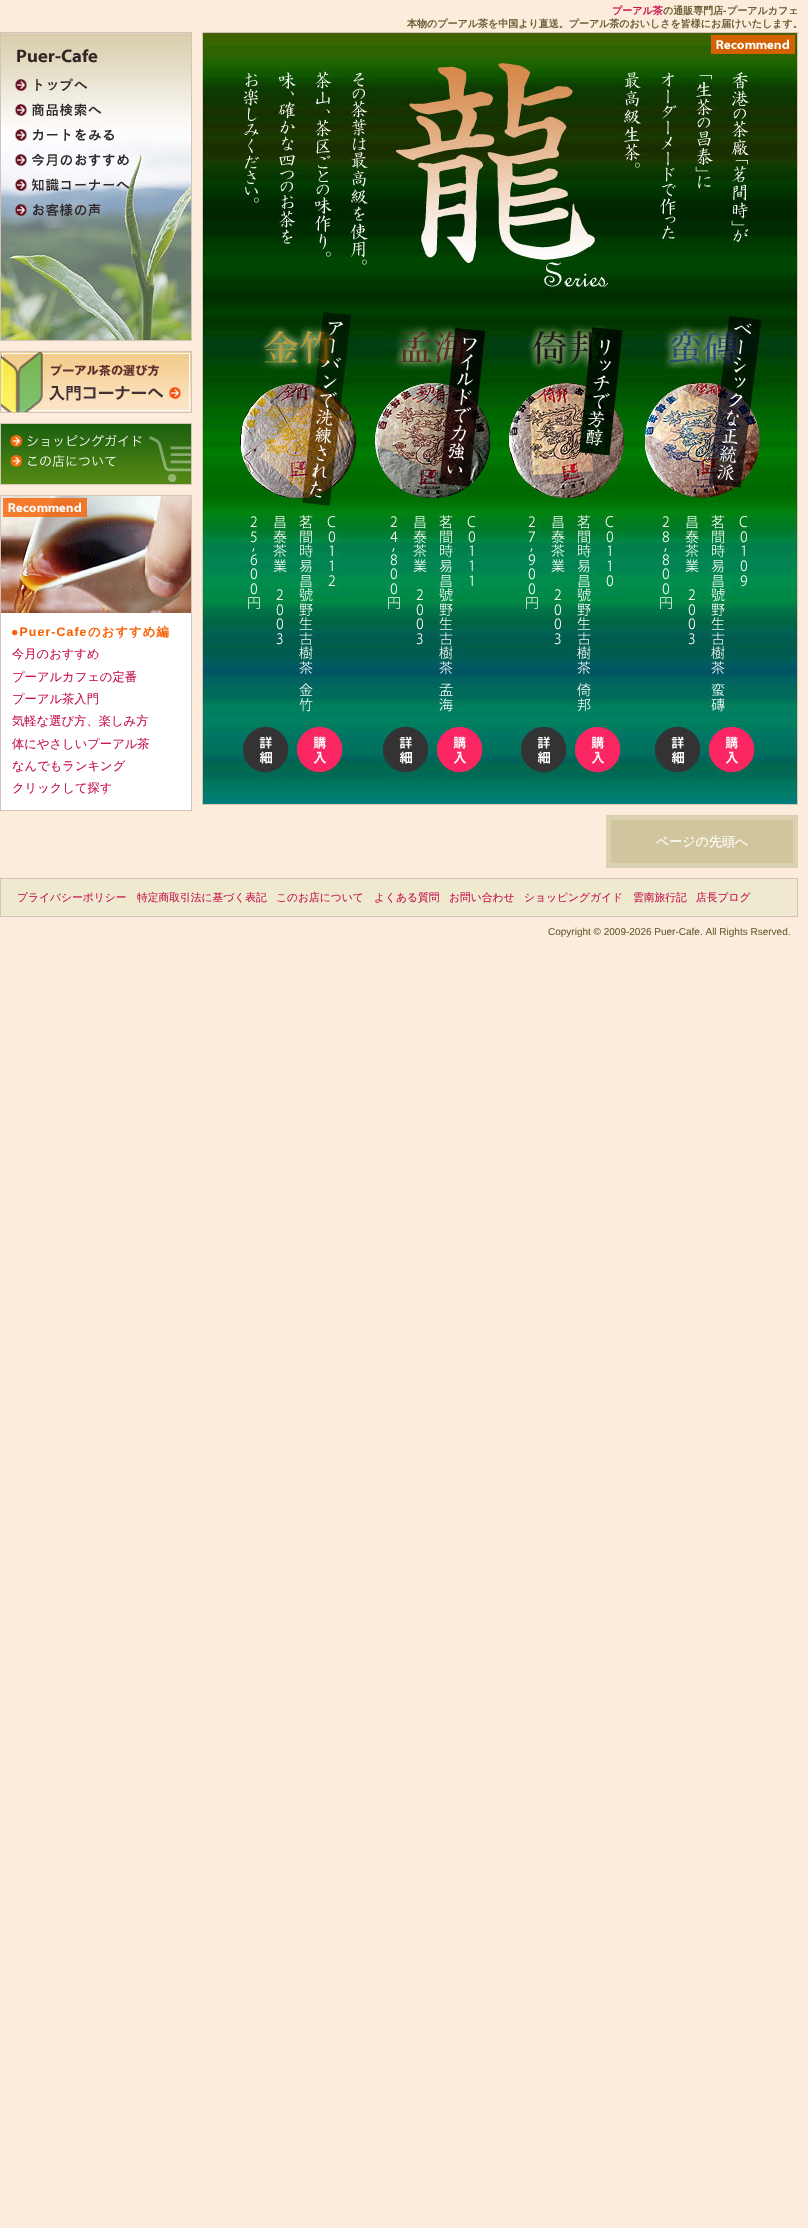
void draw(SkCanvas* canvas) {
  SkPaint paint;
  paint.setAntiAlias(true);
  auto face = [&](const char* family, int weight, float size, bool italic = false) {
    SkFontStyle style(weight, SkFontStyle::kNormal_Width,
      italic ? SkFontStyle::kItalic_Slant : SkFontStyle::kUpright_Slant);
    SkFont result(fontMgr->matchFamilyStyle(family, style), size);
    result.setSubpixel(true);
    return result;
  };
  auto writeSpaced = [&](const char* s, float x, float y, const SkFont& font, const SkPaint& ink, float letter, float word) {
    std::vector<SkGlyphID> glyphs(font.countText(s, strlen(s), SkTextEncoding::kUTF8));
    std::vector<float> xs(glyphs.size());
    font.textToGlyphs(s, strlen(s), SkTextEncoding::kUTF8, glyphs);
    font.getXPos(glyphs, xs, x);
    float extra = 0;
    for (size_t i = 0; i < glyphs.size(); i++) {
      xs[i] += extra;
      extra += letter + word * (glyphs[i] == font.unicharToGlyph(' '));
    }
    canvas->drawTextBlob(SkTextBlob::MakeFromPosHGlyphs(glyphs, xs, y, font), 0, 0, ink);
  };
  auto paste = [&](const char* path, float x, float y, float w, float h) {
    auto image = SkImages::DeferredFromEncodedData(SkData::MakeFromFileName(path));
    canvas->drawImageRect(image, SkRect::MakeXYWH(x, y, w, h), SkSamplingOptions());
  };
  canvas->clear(0xfffdebdb);
  paste("img/1.png", 1, 33, 190, 307);
  paint.setStroke(true);
  paint.setStrokeWidth(1);
  paint.setColor(0xffd5c3b9);
  canvas->drawRect(SkRect::MakeXYWH(0.5f, 32.5f, 191, 308), paint);
  paste("img/2.png", 17, 49, 81, 14);
  paste("img/3.png", 15, 78, 73, 13);
  paste("img/4.png", 15, 103, 87, 14);
  paste("img/5.png", 15, 128, 99, 13);
  paste("img/6.png", 15, 153, 114, 14);
  paste("img/7.png", 15, 178, 115, 13);
  paste("img/8.png", 15, 203, 86, 14);
  paste("img/9.png", 0, 351, 192, 62);
  paste("img/10.png", 1, 424, 190, 60);
  canvas->drawRect(SkRect::MakeXYWH(0.5f, 423.5f, 191, 61), paint);
  paste("img/11.png", 10, 434, 132, 13);
  paste("img/12.png", 10, 455, 106, 12);
  paint.setStroke(false);
  paint.setColor(0xffffffff);
  canvas->drawRect(SkRect::MakeXYWH(1, 613, 190, 197), paint);
  paint.setStroke(true);
  paint.setColor(0xffd5c3b9);
  canvas->drawRect(SkRect::MakeXYWH(0.5f, 495.5f, 191, 315), paint);
  paste("img/13.png", 1, 496, 190, 117);
  canvas->drawRect(SkRect::MakeXYWH(202.5f, 32.5f, 595, 772), paint);
  paste("img/15.png", 203, 33, 594, 771);
  paste("img/14.png", 711, 35, 84, 19);
  paint.setStroke(false);
  paint.setColor(0xffd1c59e);
  canvas->drawRect(SkRect::MakeXYWH(608.5f, 817.5f, 187, 48), paint);
  paint.setStroke(true);
  paint.setStrokeWidth(5);
  paint.setColor(0xffdad1b1);
  canvas->drawRect(SkRect::MakeXYWH(608.5f, 817.5f, 187, 48), paint);
  paint.setStrokeWidth(1);
  paint.setColor(0xffd5c3b9);
  canvas->drawRect(SkRect::MakeXYWH(0.5f, 878.5f, 797, 38), paint);
  paint.setStroke(false);
  paint.setColor(0xffefe9cf);
  canvas->drawRect(SkRect::MakeXYWH(1, 879, 796, 37), paint);
  auto f0 = face("WenQuanYi Zen Hei", 700, 10);
  paint.setColor(0xffc7144f);
  canvas->drawString("プーアル茶", 612, 14, f0, paint);
  paint.setColor(0xff6b5e34);
  canvas->drawString("の通販専門店", 663, 14, f0, paint);
  auto f1 = face("Liberation Sans", 700, 10);
  canvas->drawString("-", 723, 14, f1, paint);
  canvas->drawString("プーアルカフェ", 727, 14, f0, paint);
  canvas->drawString("本物のプーアル茶を中国より直送。プーアル茶のおいしさを皆様にお届けいたします。", 407, 27, f0, paint);
  auto f2 = face("Liberation Sans", 700, 12.3f);
  paint.setColor(0xfff96003);
  writeSpaced("●Puer-Cafe", 11, 636, f2, paint, 1.1f, 0);
  auto f3 = face("WenQuanYi Zen Hei", 700, 12.3f);
  writeSpaced("のおすすめ編", 88, 636, f3, paint, 1.1f, 0);
  auto f4 = face("WenQuanYi Zen Hei", 500, 12.3f);
  paint.setColor(0xffc7144f);
  {
    const struct { const char* s; float x, y; } items[] = {
      {"今月のおすすめ", 12, 658},
      {"プーアルカフェの定番", 12, 681},
      {"プーアル茶入門", 12, 703},
      {"気軽な選び方、楽しみ方", 12, 725},
      {"体にやさしいプーアル茶", 12, 748},
      {"なんでもランキング", 12, 770},
      {"クリックして探す", 12, 792},
    };
    for (auto [s, x, y] : items) {
      canvas->drawString(s, x, y, f4, paint);
    }
  }
  auto f5 = face("WenQuanYi Zen Hei", 500, 13);
  paint.setColor(0xffffffff);
  canvas->drawString("ページの先頭へ", 656, 846, f5, paint);
  auto f6 = face("WenQuanYi Zen Hei", 500, 10.75f);
  paint.setColor(0xffc7144f);
  {
    const struct { const char* s; float x, y; } items[] = {
      {"プライバシーポリシー", 17, 901},
      {"特定商取引法に基づく表記", 137, 901},
      {"このお店について", 276, 901},
      {"よくある質問", 374, 901},
      {"お問い合わせ", 449, 901},
      {"ショッピングガイド", 524, 901},
      {"雲南旅行記", 633, 901},
      {"店長ブログ", 696, 901},
    };
    for (auto [s, x, y] : items) {
      canvas->drawString(s, x, y, f6, paint);
    }
  }
  auto f7 = face("Liberation Sans", 400, 10);
  paint.setColor(0xff6b5e34);
  canvas->drawString("Copyright © 2009-2026 Puer-Cafe. All Rights Rserved.", 548, 935, f7, paint);
}
